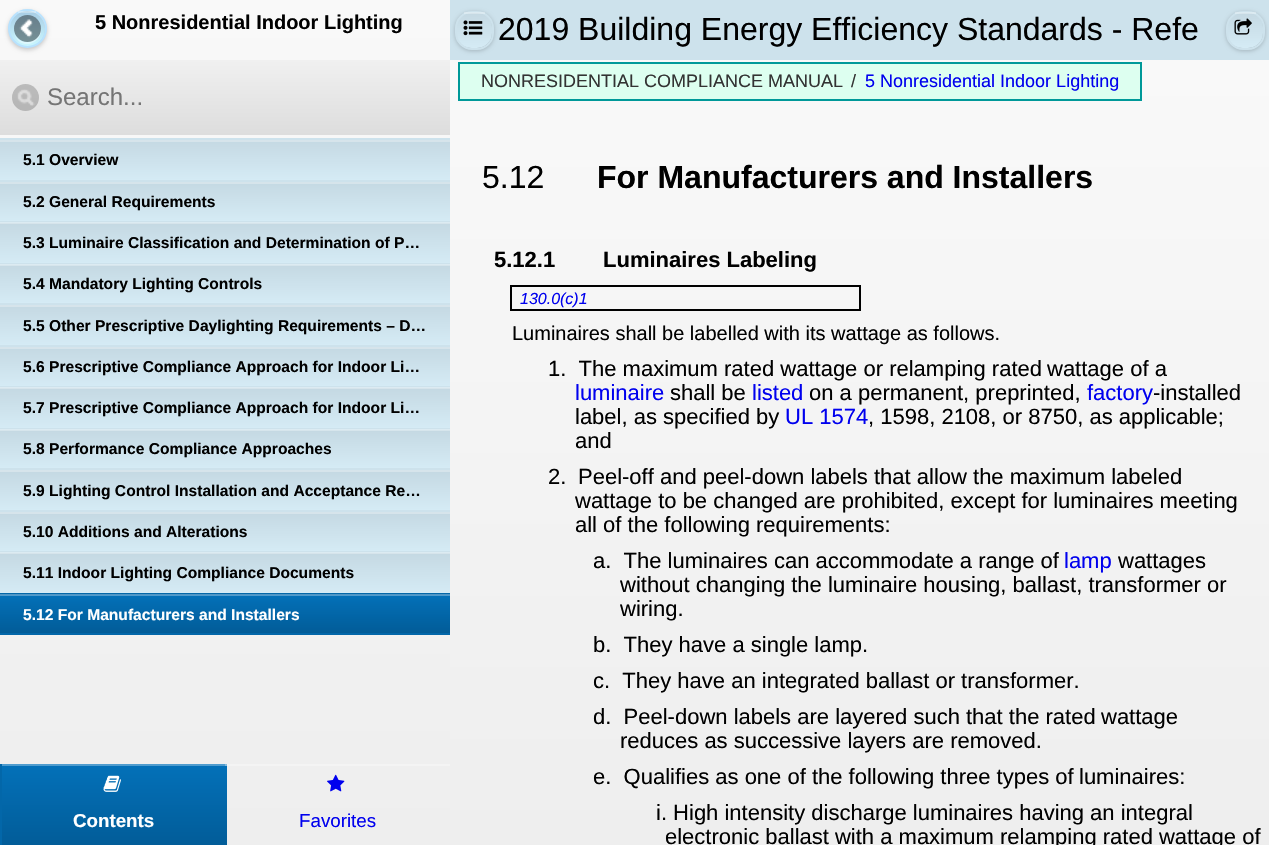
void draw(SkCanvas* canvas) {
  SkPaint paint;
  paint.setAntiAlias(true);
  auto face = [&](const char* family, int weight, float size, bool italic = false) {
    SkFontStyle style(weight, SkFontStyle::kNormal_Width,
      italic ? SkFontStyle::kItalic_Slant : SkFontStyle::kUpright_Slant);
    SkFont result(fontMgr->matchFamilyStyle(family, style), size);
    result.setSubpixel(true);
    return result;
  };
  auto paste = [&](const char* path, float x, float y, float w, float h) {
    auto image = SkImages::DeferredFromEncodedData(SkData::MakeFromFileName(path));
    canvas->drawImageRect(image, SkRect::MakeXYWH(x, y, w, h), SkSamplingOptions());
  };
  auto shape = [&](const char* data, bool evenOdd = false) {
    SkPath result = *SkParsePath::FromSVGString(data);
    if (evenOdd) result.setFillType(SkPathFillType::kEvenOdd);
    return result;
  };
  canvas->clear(0xffffffff);
  {
    const SkColor colors[] = {0xfff9f9f9, 0xffeeeeee};
    const float stops[] = {0, 1};
    const SkPoint ends[] = {{225, 0}, {225, 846}};
    paint.setShader(SkGradientShader::MakeLinear(ends, colors, stops, 2, SkTileMode::kClamp));
    paint.setAlpha(255);
  }
  canvas->drawRect(SkRect::MakeXYWH(0, 0, 450, 845), paint);
  {
    const SkColor colors[] = {0xfffbfbfb, 0xfff3f3f3};
    const float stops[] = {0, 1};
    const SkPoint ends[] = {{225, 0}, {225, 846}};
    paint.setShader(SkGradientShader::MakeLinear(ends, colors, stops, 2, SkTileMode::kClamp));
    paint.setAlpha(255);
  }
  canvas->drawRect(SkRect::MakeXYWH(225, 764, 225, 2), paint);
  paint.setShader(nullptr);
  paint.setColor(0x33000000);
  paint.setMaskFilter(SkMaskFilter::MakeBlur(kNormal_SkBlurStyle, 2));
  canvas->drawRoundRect(SkRect::MakeXYWH(8, 11, 39, 39), 19.5f, 19.5f, paint);
  paint.setMaskFilter(nullptr);
  {
    const SkColor colors[] = {0xffa5cbe4, 0xffcaf8ff};
    const float stops[] = {0, 1};
    const SkPoint ends[] = {{27, 10}, {27, 47}};
    paint.setShader(SkGradientShader::MakeLinear(ends, colors, stops, 2, SkTileMode::kClamp));
    paint.setAlpha(255);
  }
  canvas->drawCircle(27, 29, 18, paint);
  paint.setStroke(true);
  paint.setStrokeWidth(2);
  paint.setShader(nullptr);
  paint.setColor(0xffb8e2fe);
  canvas->drawCircle(27.5f, 28.5f, 18.5f, paint);
  paint.setStroke(false);
  paint.setColor(0x4dffffff);
  canvas->drawRect(SkRect::MakeXYWH(18, 11, 18, 2), paint);
  paint.setColor(0x66ffffff);
  canvas->drawPath(shape("M14 33C14.5 36 16.5 38.5 18.5 41C29 49.5 44.5 39 40.5 26C43 42.5 19.5 48.5 14 33Z"), paint);
  paint.setColor(0x66000000);
  canvas->drawCircle(27.5f, 28.5f, 13.5f, paint);
  paste("img/1.png", 19, 19, 14, 19);
  {
    const SkColor colors[] = {0xfff0f0f0, 0xffdddddd};
    const float stops[] = {0, 1};
    const SkPoint ends[] = {{225, 60}, {225, 135}};
    paint.setShader(SkGradientShader::MakeLinear(ends, colors, stops, 2, SkTileMode::kClamp));
    paint.setAlpha(255);
  }
  canvas->drawRect(SkRect::MakeXYWH(0, 60, 450, 75), paint);
  paint.setShader(nullptr);
  paint.setColor(0x33000000);
  canvas->drawCircle(25.5f, 97.5f, 13.5f, paint);
  paste("img/2.png", 17, 89, 18, 17);
  {
    const SkColor colors[] = {0xffc4d8e2, 0xffd5ebf5};
    const float stops[] = {0, 1};
    const SkPoint ends[] = {{225, 139}, {225, 180}};
    paint.setShader(SkGradientShader::MakeLinear(ends, colors, stops, 2, SkTileMode::kClamp));
    paint.setAlpha(255);
  }
  canvas->drawRect(SkRect::MakeXYWH(0, 142, 450, 38), paint);
  paint.setShader(nullptr);
  paint.setColor(0xffcde2ec);
  canvas->drawRect(SkRect::MakeXYWH(0, 138, 450, 2), paint);
  paint.setColor(0xffd6e4eb);
  canvas->drawRect(SkRect::MakeXYWH(0, 140, 450, 2), paint);
  {
    const SkColor colors[] = {0xffc4d8e2, 0xffd5ebf5};
    const float stops[] = {0, 1};
    const SkPoint ends[] = {{225, 181}, {225, 221}};
    paint.setShader(SkGradientShader::MakeLinear(ends, colors, stops, 2, SkTileMode::kClamp));
    paint.setAlpha(255);
  }
  canvas->drawRect(SkRect::MakeXYWH(0, 184, 450, 37), paint);
  paint.setShader(nullptr);
  paint.setColor(0xffcde2ec);
  canvas->drawRect(SkRect::MakeXYWH(0, 180, 450, 2), paint);
  paint.setColor(0xffd6e4eb);
  canvas->drawRect(SkRect::MakeXYWH(0, 182, 450, 2), paint);
  {
    const SkColor colors[] = {0xffc4d8e2, 0xffd5ebf5};
    const float stops[] = {0, 1};
    const SkPoint ends[] = {{225, 222}, {225, 263}};
    paint.setShader(SkGradientShader::MakeLinear(ends, colors, stops, 2, SkTileMode::kClamp));
    paint.setAlpha(255);
  }
  canvas->drawRect(SkRect::MakeXYWH(0, 224, 450, 39), paint);
  {
    const SkColor colors[] = {0xffd6e4eb, 0xffe2f1f8};
    const float stops[] = {0, 1};
    const SkPoint ends[] = {{225, 222}, {225, 263}};
    paint.setShader(SkGradientShader::MakeLinear(ends, colors, stops, 2, SkTileMode::kClamp));
    paint.setAlpha(255);
  }
  canvas->drawRect(SkRect::MakeXYWH(0, 223, 450, 1), paint);
  paint.setShader(nullptr);
  paint.setColor(0xffcde2ec);
  canvas->drawRect(SkRect::MakeXYWH(0, 221, 450, 1), paint);
  paint.setColor(0xffdcebf2);
  canvas->drawRect(SkRect::MakeXYWH(0, 222, 450, 1), paint);
  {
    const SkColor colors[] = {0xffc4d8e2, 0xffd5ebf5};
    const float stops[] = {0, 1};
    const SkPoint ends[] = {{225, 264}, {225, 303}};
    paint.setShader(SkGradientShader::MakeLinear(ends, colors, stops, 2, SkTileMode::kClamp));
    paint.setAlpha(255);
  }
  canvas->drawRect(SkRect::MakeXYWH(0, 266, 450, 37), paint);
  {
    const SkColor colors[] = {0xffd6e4eb, 0xffe2f1f8};
    const float stops[] = {0, 1};
    const SkPoint ends[] = {{225, 264}, {225, 303}};
    paint.setShader(SkGradientShader::MakeLinear(ends, colors, stops, 2, SkTileMode::kClamp));
    paint.setAlpha(255);
  }
  canvas->drawRect(SkRect::MakeXYWH(0, 265, 450, 1), paint);
  paint.setShader(nullptr);
  paint.setColor(0xffcde2ec);
  canvas->drawRect(SkRect::MakeXYWH(0, 263, 450, 1), paint);
  paint.setColor(0xffdcebf2);
  canvas->drawRect(SkRect::MakeXYWH(0, 264, 450, 1), paint);
  {
    const SkColor colors[] = {0xffc4d8e2, 0xffd5ebf5};
    const float stops[] = {0, 1};
    const SkPoint ends[] = {{225, 304}, {225, 345}};
    paint.setShader(SkGradientShader::MakeLinear(ends, colors, stops, 2, SkTileMode::kClamp));
    paint.setAlpha(255);
  }
  canvas->drawRect(SkRect::MakeXYWH(0, 307, 450, 38), paint);
  paint.setShader(nullptr);
  paint.setColor(0xffcde2ec);
  canvas->drawRect(SkRect::MakeXYWH(0, 303, 450, 2), paint);
  paint.setColor(0xffd6e4eb);
  canvas->drawRect(SkRect::MakeXYWH(0, 305, 450, 2), paint);
  {
    const SkColor colors[] = {0xffc4d8e2, 0xffd5ebf5};
    const float stops[] = {0, 1};
    const SkPoint ends[] = {{225, 346}, {225, 386}};
    paint.setShader(SkGradientShader::MakeLinear(ends, colors, stops, 2, SkTileMode::kClamp));
    paint.setAlpha(255);
  }
  canvas->drawRect(SkRect::MakeXYWH(0, 349, 450, 37), paint);
  paint.setShader(nullptr);
  paint.setColor(0xffcde2ec);
  canvas->drawRect(SkRect::MakeXYWH(0, 345, 450, 2), paint);
  paint.setColor(0xffd6e4eb);
  canvas->drawRect(SkRect::MakeXYWH(0, 347, 450, 2), paint);
  {
    const SkColor colors[] = {0xffc4d8e2, 0xffd5ebf5};
    const float stops[] = {0, 1};
    const SkPoint ends[] = {{225, 387}, {225, 428}};
    paint.setShader(SkGradientShader::MakeLinear(ends, colors, stops, 2, SkTileMode::kClamp));
    paint.setAlpha(255);
  }
  canvas->drawRect(SkRect::MakeXYWH(0, 389, 450, 39), paint);
  {
    const SkColor colors[] = {0xffd6e4eb, 0xffe2f1f8};
    const float stops[] = {0, 1};
    const SkPoint ends[] = {{225, 387}, {225, 428}};
    paint.setShader(SkGradientShader::MakeLinear(ends, colors, stops, 2, SkTileMode::kClamp));
    paint.setAlpha(255);
  }
  canvas->drawRect(SkRect::MakeXYWH(0, 388, 450, 1), paint);
  paint.setShader(nullptr);
  paint.setColor(0xffcde2ec);
  canvas->drawRect(SkRect::MakeXYWH(0, 386, 450, 1), paint);
  paint.setColor(0xffdcebf2);
  canvas->drawRect(SkRect::MakeXYWH(0, 387, 450, 1), paint);
  {
    const SkColor colors[] = {0xffc4d8e2, 0xffd5ebf5};
    const float stops[] = {0, 1};
    const SkPoint ends[] = {{225, 429}, {225, 468}};
    paint.setShader(SkGradientShader::MakeLinear(ends, colors, stops, 2, SkTileMode::kClamp));
    paint.setAlpha(255);
  }
  canvas->drawRect(SkRect::MakeXYWH(0, 431, 450, 37), paint);
  {
    const SkColor colors[] = {0xffd6e4eb, 0xffe2f1f8};
    const float stops[] = {0, 1};
    const SkPoint ends[] = {{225, 429}, {225, 468}};
    paint.setShader(SkGradientShader::MakeLinear(ends, colors, stops, 2, SkTileMode::kClamp));
    paint.setAlpha(255);
  }
  canvas->drawRect(SkRect::MakeXYWH(0, 430, 450, 1), paint);
  paint.setShader(nullptr);
  paint.setColor(0xffcde2ec);
  canvas->drawRect(SkRect::MakeXYWH(0, 428, 450, 1), paint);
  paint.setColor(0xffdcebf2);
  canvas->drawRect(SkRect::MakeXYWH(0, 429, 450, 1), paint);
  {
    const SkColor colors[] = {0xffc4d8e2, 0xffd5ebf5};
    const float stops[] = {0, 1};
    const SkPoint ends[] = {{225, 470}, {225, 510}};
    paint.setShader(SkGradientShader::MakeLinear(ends, colors, stops, 2, SkTileMode::kClamp));
    paint.setAlpha(255);
  }
  canvas->drawRect(SkRect::MakeXYWH(0, 472, 450, 38), paint);
  paint.setShader(nullptr);
  paint.setColor(0xffcde2ec);
  canvas->drawRect(SkRect::MakeXYWH(0, 468, 450, 2), paint);
  paint.setColor(0xffd6e4eb);
  canvas->drawRect(SkRect::MakeXYWH(0, 470, 450, 2), paint);
  {
    const SkColor colors[] = {0xffc4d8e2, 0xffd5ebf5};
    const float stops[] = {0, 1};
    const SkPoint ends[] = {{225, 512}, {225, 551}};
    paint.setShader(SkGradientShader::MakeLinear(ends, colors, stops, 2, SkTileMode::kClamp));
    paint.setAlpha(255);
  }
  canvas->drawRect(SkRect::MakeXYWH(0, 514, 450, 37), paint);
  paint.setShader(nullptr);
  paint.setColor(0xffcde2ec);
  canvas->drawRect(SkRect::MakeXYWH(0, 510, 450, 2), paint);
  paint.setColor(0xffd6e4eb);
  canvas->drawRect(SkRect::MakeXYWH(0, 512, 450, 2), paint);
  {
    const SkColor colors[] = {0xffc4d8e2, 0xffd5ebf5};
    const float stops[] = {0, 1};
    const SkPoint ends[] = {{225, 552}, {225, 593}};
    paint.setShader(SkGradientShader::MakeLinear(ends, colors, stops, 2, SkTileMode::kClamp));
    paint.setAlpha(255);
  }
  canvas->drawRect(SkRect::MakeXYWH(0, 554, 450, 39), paint);
  {
    const SkColor colors[] = {0xffd6e4eb, 0xffe2f1f8};
    const float stops[] = {0, 1};
    const SkPoint ends[] = {{225, 552}, {225, 593}};
    paint.setShader(SkGradientShader::MakeLinear(ends, colors, stops, 2, SkTileMode::kClamp));
    paint.setAlpha(255);
  }
  canvas->drawRect(SkRect::MakeXYWH(0, 553, 450, 1), paint);
  paint.setShader(nullptr);
  paint.setColor(0xffcde2ec);
  canvas->drawRect(SkRect::MakeXYWH(0, 551, 450, 1), paint);
  paint.setColor(0xffdcebf2);
  canvas->drawRect(SkRect::MakeXYWH(0, 552, 450, 1), paint);
  {
    const SkColor colors[] = {0xff0371b9, 0xff025c98};
    const float stops[] = {0, 1};
    const SkPoint ends[] = {{225, 594}, {225, 633}};
    paint.setShader(SkGradientShader::MakeLinear(ends, colors, stops, 2, SkTileMode::kClamp));
    paint.setAlpha(255);
  }
  canvas->drawRect(SkRect::MakeXYWH(0, 596, 450, 37), paint);
  {
    const SkColor colors[] = {0xff4f9cce, 0xff4e8db7};
    const float stops[] = {0, 1};
    const SkPoint ends[] = {{225, 594}, {225, 633}};
    paint.setShader(SkGradientShader::MakeLinear(ends, colors, stops, 2, SkTileMode::kClamp));
    paint.setAlpha(255);
  }
  canvas->drawRect(SkRect::MakeXYWH(0, 595, 450, 1), paint);
  paint.setShader(nullptr);
  {
    const struct { float x, y, w, h; SkColor color; } items[] = {
      {0, 593, 450, 1, 0xff0367a9},
      {0, 594, 450, 1, 0xff4f95c3},
      {0, 633, 450, 2, 0xff0367a9},
    };
    for (auto [x, y, w, h, color] : items) {
      paint.setColor(color);
      canvas->drawRect(SkRect::MakeXYWH(x, y, w, h), paint);
    }
  }
  {
    const SkColor colors[] = {0xff0371b9, 0xff025c98};
    const float stops[] = {0, 1};
    const SkPoint ends[] = {{114, 764}, {114, 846}};
    paint.setShader(SkGradientShader::MakeLinear(ends, colors, stops, 2, SkTileMode::kClamp));
    paint.setAlpha(255);
  }
  canvas->drawRect(SkRect::MakeXYWH(2, 766, 225, 79), paint);
  paint.setShader(nullptr);
  {
    const struct { float x, y, w, h; SkColor color; } items[] = {
      {0, 764, 2, 81, 0xff0367a9},
      {2, 764, 225, 2, 0xff4f9cce},
      {225, 764, 2, 2, 0xff84badd},
    };
    for (auto [x, y, w, h, color] : items) {
      paint.setColor(color);
      canvas->drawRect(SkRect::MakeXYWH(x, y, w, h), paint);
    }
  }
  paste("img/3.png", 103, 775, 18, 17);
  paste("img/4.png", 327, 774, 18, 18);
  paint.setColor(0xffcde2ec);
  canvas->drawRect(SkRect::MakeXYWH(450, 0, 819, 60), paint);
  paint.setColor(0x33000000);
  paint.setMaskFilter(SkMaskFilter::MakeBlur(kNormal_SkBlurStyle, 2));
  canvas->drawRoundRect(SkRect::MakeXYWH(455, 12, 39, 39), 17, 17, paint);
  paint.setMaskFilter(nullptr);
  {
    const SkColor colors[] = {0xffc4d8e2, 0xffd5ebf5};
    const float stops[] = {0, 1};
    const SkPoint ends[] = {{474, 12}, {474, 48}};
    paint.setShader(SkGradientShader::MakeLinear(ends, colors, stops, 2, SkTileMode::kClamp));
    paint.setAlpha(255);
  }
  canvas->drawRoundRect(SkRect::MakeXYWH(456, 12, 36, 36), 15, 15, paint);
  paint.setStroke(true);
  paint.setShader(nullptr);
  paint.setColor(0xffcde2ec);
  canvas->drawRoundRect(SkRect::MakeXYWH(456, 12, 37, 37), 16, 16, paint);
  paint.setStroke(false);
  paint.setColor(0x4dffffff);
  canvas->drawRect(SkRect::MakeXYWH(464, 12, 21, 2), paint);
  paste("img/5.png", 463, 20, 20, 16);
  paint.setColor(0x33000000);
  paint.setMaskFilter(SkMaskFilter::MakeBlur(kNormal_SkBlurStyle, 2));
  canvas->drawRoundRect(SkRect::MakeXYWH(1226, 12, 39, 39), 17, 17, paint);
  paint.setMaskFilter(nullptr);
  {
    const SkColor colors[] = {0xffc4d8e2, 0xffd5ebf5};
    const float stops[] = {0, 1};
    const SkPoint ends[] = {{1245, 12}, {1245, 48}};
    paint.setShader(SkGradientShader::MakeLinear(ends, colors, stops, 2, SkTileMode::kClamp));
    paint.setAlpha(255);
  }
  canvas->drawRoundRect(SkRect::MakeXYWH(1227, 12, 36, 36), 15, 15, paint);
  paint.setStroke(true);
  paint.setShader(nullptr);
  paint.setColor(0xffcde2ec);
  canvas->drawRoundRect(SkRect::MakeXYWH(1227, 12, 37, 37), 16, 16, paint);
  paint.setStroke(false);
  paint.setColor(0x4dffffff);
  canvas->drawRect(SkRect::MakeXYWH(1235, 12, 21, 2), paint);
  paste("img/6.png", 1234, 18, 18, 17);
  {
    const SkColor colors[] = {0xfff9f9f9, 0xffeeeeee};
    const float stops[] = {0, 1};
    const SkPoint ends[] = {{860, 60}, {860, 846}};
    paint.setShader(SkGradientShader::MakeLinear(ends, colors, stops, 2, SkTileMode::kClamp));
    paint.setAlpha(255);
  }
  canvas->drawRect(SkRect::MakeXYWH(450, 60, 819, 785), paint);
  paint.setShader(nullptr);
  paint.setColor(0xffddfff0);
  canvas->drawRect(SkRect::MakeXYWH(459, 63, 682, 37), paint);
  paint.setStroke(true);
  paint.setColor(0xff009999);
  canvas->drawRect(SkRect::MakeXYWH(459, 63, 682, 37), paint);
  paint.setColor(0xff000000);
  canvas->drawRect(SkRect::MakeXYWH(511, 286, 349, 24), paint);
  auto f0 = face("Liberation Sans", 700, 20);
  paint.setStroke(false);
  canvas->drawString("5 Nonresidential Indoor Lighting", 95, 29, f0, paint);
  auto f1 = face("Liberation Sans", 400, 24);
  paint.setColor(0xff757575);
  canvas->drawString("Search...", 47, 105, f1, paint);
  auto f2 = face("Liberation Sans", 700, 15.6f);
  paint.setColor(0xff000000);
  {
    const struct { const char* s; float x, y; } items[] = {
      {"5.1 Overview", 23, 165},
      {"5.2 General Requirements", 23, 207},
      {"5.3 Luminaire Classification and Determination of P…", 23, 248},
      {"5.4 Mandatory Lighting Controls", 23, 289},
      {"5.5 Other Prescriptive Daylighting Requirements – D…", 23, 331},
      {"5.6 Prescriptive Compliance Approach for Indoor Li…", 23, 372},
      {"5.7 Prescriptive Compliance Approach for Indoor Li…", 23, 413},
      {"5.8 Performance Compliance Approaches", 23, 454},
      {"5.9 Lighting Control Installation and Acceptance Re…", 23, 496},
      {"5.10 Additions and Alterations", 23, 537},
      {"5.11 Indoor Lighting Compliance Documents", 23, 578},
    };
    for (auto [s, x, y] : items) {
      canvas->drawString(s, x, y, f2, paint);
    }
  }
  paint.setColor(0xffffffff);
  canvas->drawString("5.12 For Manufacturers and Installers", 23, 620, f2, paint);
  auto f3 = face("Liberation Sans", 700, 18.75f);
  canvas->drawString("Contents", 73, 827, f3, paint);
  auto f4 = face("Liberation Sans", 400, 18.75f);
  paint.setColor(0xff0000ee);
  canvas->drawString("Favorites", 299, 827, f4, paint);
  auto f5 = face("Liberation Sans", 400, 32);
  paint.setColor(0xff000000);
  canvas->drawString("2019 Building Energy Efficiency Standards - Refe", 498, 40, f5, paint);
  auto f6 = face("Liberation Sans", 400, 18);
  paint.setColor(0xff333333);
  canvas->drawString("NONRESIDENTIAL COMPLIANCE MANUAL", 481, 87, f6, paint);
  canvas->drawString("/", 851, 87, f6, paint);
  paint.setColor(0xff0000ee);
  canvas->drawString("5 Nonresidential Indoor Lighting", 865, 87, f6, paint);
  paint.setColor(0xff000000);
  canvas->drawString("5.12", 482, 188, f5, paint);
  auto f7 = face("Liberation Sans", 700, 32);
  canvas->drawString("For Manufacturers and Installers", 597, 188, f7, paint);
  auto f8 = face("Liberation Sans", 700, 22);
  canvas->drawString("5.12.1", 494, 267, f8, paint);
  canvas->drawString("Luminaires Labeling", 603, 267, f8, paint);
  auto f9 = face("Liberation Sans", 400, 16, true);
  paint.setColor(0xff0000ee);
  canvas->drawString("130.0(c)1", 520, 304, f9, paint);
  auto f10 = face("Liberation Sans", 400, 20);
  paint.setColor(0xff000000);
  canvas->drawString("Luminaires shall be labelled with its wattage as follows.", 512, 340, f10, paint);
  auto f11 = face("Liberation Sans", 400, 22);
  canvas->drawString("1.  The maximum rated wattage or relamping rated", 548, 376, f11, paint);
  canvas->drawString("wattage of a", 1047, 376, f11, paint);
  paint.setColor(0xff0000ee);
  canvas->drawString("luminaire", 575, 400, f11, paint);
  paint.setColor(0xff000000);
  canvas->drawString("shall be", 670, 400, f11, paint);
  paint.setColor(0xff0000ee);
  canvas->drawString("listed", 752, 400, f11, paint);
  paint.setColor(0xff000000);
  canvas->drawString("on a permanent, preprinted,", 809, 400, f11, paint);
  paint.setColor(0xff0000ee);
  canvas->drawString("factory", 1087, 400, f11, paint);
  paint.setColor(0xff000000);
  canvas->drawString("-installed", 1153, 400, f11, paint);
  canvas->drawString("label, as specified by", 575, 424, f11, paint);
  paint.setColor(0xff0000ee);
  canvas->drawString("UL 1574", 785, 424, f11, paint);
  paint.setColor(0xff000000);
  {
    const struct { const char* s; float x, y; } items[] = {
      {", 1598, 2108, or 8750, as applicable;", 868, 424},
      {"and", 575, 448},
      {"2.", 548, 484},
      {"Peel-off and peel-down labels that allow the maximum labeled", 578, 484},
      {"wattage to be changed are prohibited, except for luminaires meeting", 575, 508},
      {"all of the following requirements:", 575, 532},
      {"a.  The luminaires can accommodate a range of", 593, 568},
    };
    for (auto [s, x, y] : items) {
      canvas->drawString(s, x, y, f11, paint);
    }
  }
  paint.setColor(0xff0000ee);
  canvas->drawString("lamp", 1064, 568, f11, paint);
  paint.setColor(0xff000000);
  {
    const struct { const char* s; float x, y; } items[] = {
      {"wattages", 1118, 568},
      {"without changing the luminaire housing, ballast, transformer or", 620, 592},
      {"wiring.", 620, 616},
      {"b.  They have a single lamp.", 593, 652},
      {"c.  They have an integrated ballast or transformer.", 593, 688},
      {"d.  Peel-down labels are layered such that the rated", 593, 724},
      {"wattage", 1101, 724},
      {"reduces as successive layers are removed.", 620, 748},
      {"e.  Qualifies as one of the following three types of", 593, 784},
      {"luminaires:", 1079, 784},
      {"i. High intensity discharge luminaires having an integral", 656, 820},
      {"electronic ballast with a maximum relamping rated wattage of", 665, 844},
    };
    for (auto [s, x, y] : items) {
      canvas->drawString(s, x, y, f11, paint);
    }
  }
}
